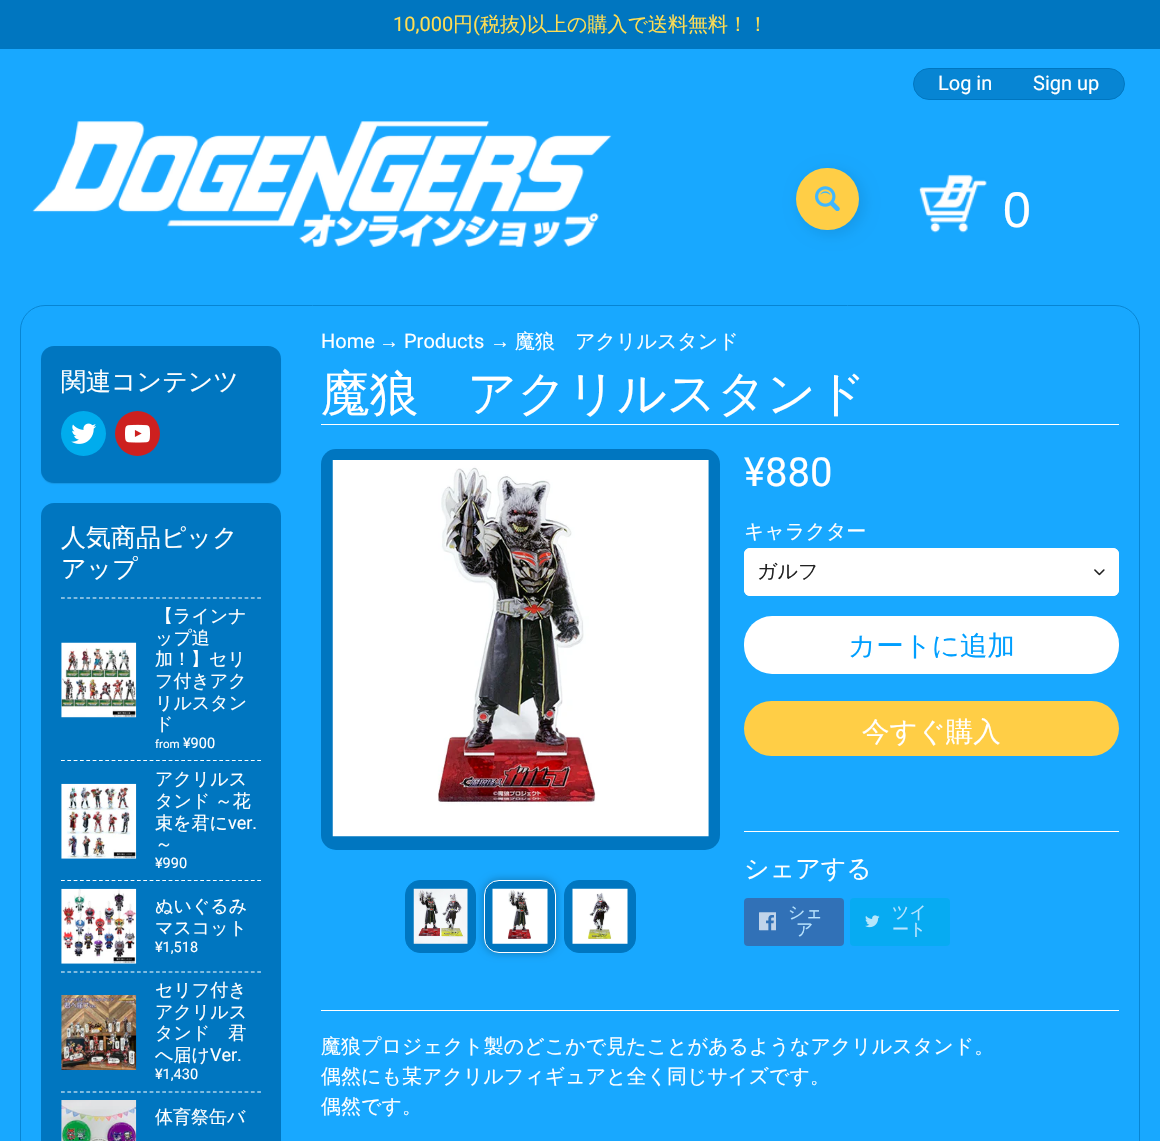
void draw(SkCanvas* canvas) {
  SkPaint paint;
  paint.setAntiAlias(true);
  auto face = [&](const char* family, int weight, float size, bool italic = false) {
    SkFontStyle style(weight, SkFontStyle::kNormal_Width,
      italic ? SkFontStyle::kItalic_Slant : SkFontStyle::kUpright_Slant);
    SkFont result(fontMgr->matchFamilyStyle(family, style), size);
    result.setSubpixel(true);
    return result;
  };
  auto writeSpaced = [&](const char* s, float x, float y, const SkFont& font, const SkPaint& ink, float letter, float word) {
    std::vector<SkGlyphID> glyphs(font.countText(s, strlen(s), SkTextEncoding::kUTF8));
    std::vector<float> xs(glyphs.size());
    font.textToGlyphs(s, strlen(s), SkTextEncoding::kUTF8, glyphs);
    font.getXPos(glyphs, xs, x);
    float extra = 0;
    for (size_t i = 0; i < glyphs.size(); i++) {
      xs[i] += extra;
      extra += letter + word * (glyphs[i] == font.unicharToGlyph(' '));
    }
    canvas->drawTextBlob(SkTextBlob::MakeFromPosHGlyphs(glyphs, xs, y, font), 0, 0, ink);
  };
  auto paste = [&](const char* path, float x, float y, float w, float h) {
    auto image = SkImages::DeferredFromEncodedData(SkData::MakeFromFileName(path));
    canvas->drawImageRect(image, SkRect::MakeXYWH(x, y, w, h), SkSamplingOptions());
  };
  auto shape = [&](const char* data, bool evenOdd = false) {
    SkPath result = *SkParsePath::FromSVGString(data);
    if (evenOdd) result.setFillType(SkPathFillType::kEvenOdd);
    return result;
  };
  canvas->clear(0xff18a8ff);
  paint.setColor(0xff0076c0);
  canvas->drawRect(SkRect::MakeXYWH(0, 0, 1160, 49), paint);
  paste("img/1.png", 32, 121, 580, 126);
  paint.setColor(0xff0785d3);
  canvas->drawRoundRect(SkRect::MakeXYWH(913.5f, 68.5f, 211, 31), 15.5f, 15.5f, paint);
  paint.setStroke(true);
  paint.setStrokeWidth(1);
  paint.setColor(0xff0076c0);
  canvas->drawRoundRect(SkRect::MakeXYWH(913.5f, 68.5f, 211, 31), 15.5f, 15.5f, paint);
  paint.setStroke(false);
  paint.setColor(0x1a000000);
  paint.setMaskFilter(SkMaskFilter::MakeBlur(kNormal_SkBlurStyle, 7.5f));
  canvas->drawRoundRect(SkRect::MakeXYWH(800, 171, 63, 63), 31.5f, 31.5f, paint);
  paint.setMaskFilter(nullptr);
  paint.setColor(0xffffce46);
  canvas->drawRoundRect(SkRect::MakeXYWH(796, 168, 63, 62), 31, 31, paint);
  paste("img/2.png", 815, 186, 25, 25);
  paste("img/3.png", 918, 174, 69, 59);
  paint.setStroke(true);
  paint.setColor(0xff0785d3);
  canvas->drawRoundRect(SkRect::MakeXYWH(20.5f, 305.5f, 1119, 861), 24.5f, 24.5f, paint);
  paint.setStroke(false);
  paint.setColor(0x1a000000);
  paint.setMaskFilter(SkMaskFilter::MakeBlur(kNormal_SkBlurStyle, 0.5f));
  canvas->drawRoundRect(SkRect::MakeXYWH(41, 348, 240, 136), 13, 13, paint);
  paint.setMaskFilter(nullptr);
  paint.setColor(0xff0076c0);
  canvas->drawRoundRect(SkRect::MakeXYWH(41, 346, 240, 137), 13, 13, paint);
  paint.setColor(0xff00aced);
  canvas->drawCircle(83.5f, 433.5f, 22.5f, paint);
  paste("img/4.png", 71, 423, 25, 21);
  paint.setColor(0xffcd201f);
  canvas->drawCircle(137.5f, 433.5f, 22.5f, paint);
  paste("img/5.png", 125, 424, 25, 19);
  paint.setColor(0xff0076c0);
  canvas->drawRoundRect(SkRect::MakeXYWH(41, 503, 240, 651), 13, 13, paint);
  paint.setStroke(true);
  paint.setStrokeWidth(1.2f);
  paint.setColor(0xffffffff);
  paint.setPathEffect(SkDashPathEffect::Make({{3.75f, 2.58f}}, 0));
  canvas->drawPath(shape("M61 598H261"), paint);
  paint.setPathEffect(nullptr);
  paste("img/6.png", 61, 642, 76, 76);
  paint.setPathEffect(SkDashPathEffect::Make({{3.75f, 2.58f}}, 0));
  canvas->drawPath(shape("M61 760.5H261"), paint);
  paint.setPathEffect(nullptr);
  paste("img/7.png", 61, 783, 76, 76);
  paint.setPathEffect(SkDashPathEffect::Make({{3.75f, 2.58f}}, 0));
  canvas->drawPath(shape("M61 880.5H261"), paint);
  paint.setPathEffect(nullptr);
  paste("img/8.png", 61, 888, 76, 76);
  paint.setPathEffect(SkDashPathEffect::Make({{3.75f, 2.58f}}, 0));
  canvas->drawPath(shape("M61 972H261"), paint);
  paint.setPathEffect(nullptr);
  paste("img/9.png", 61, 995, 76, 75);
  paint.setPathEffect(SkDashPathEffect::Make({{3.75f, 2.58f}}, 0));
  canvas->drawPath(shape("M61 1092H261"), paint);
  paint.setPathEffect(nullptr);
  paste("img/10.png", 61, 1100, 76, 41);
  paint.setStroke(false);
  canvas->drawRect(SkRect::MakeXYWH(321, 424, 798, 1), paint);
  paint.setColor(0xff0076c0);
  canvas->drawRoundRect(SkRect::MakeXYWH(321, 449, 399, 401), 15, 15, paint);
  paste("img/11.png", 332, 460, 377, 377);
  canvas->drawRoundRect(SkRect::MakeXYWH(405.5f, 880.5f, 70, 72), 14.5f, 14.5f, paint);
  paint.setStroke(true);
  paint.setStrokeWidth(1);
  canvas->drawRoundRect(SkRect::MakeXYWH(405.5f, 880.5f, 70, 72), 14.5f, 14.5f, paint);
  paste("img/12.png", 413, 888, 55, 56);
  paint.setStroke(false);
  paint.setColor(0x4d000000);
  paint.setMaskFilter(SkMaskFilter::MakeBlur(kNormal_SkBlurStyle, 4));
  canvas->drawRoundRect(SkRect::MakeXYWH(484, 880, 72, 73), 15, 15, paint);
  paint.setMaskFilter(nullptr);
  paint.setColor(0xff0076c0);
  canvas->drawRoundRect(SkRect::MakeXYWH(484.5f, 880.5f, 71, 72), 14.5f, 14.5f, paint);
  paint.setStroke(true);
  paint.setColor(0xffffffff);
  canvas->drawRoundRect(SkRect::MakeXYWH(484.5f, 880.5f, 71, 72), 14.5f, 14.5f, paint);
  paste("img/13.png", 492, 888, 56, 56);
  paint.setStroke(false);
  paint.setColor(0xff0076c0);
  canvas->drawRoundRect(SkRect::MakeXYWH(564.5f, 880.5f, 71, 72), 14.5f, 14.5f, paint);
  paint.setStroke(true);
  canvas->drawRoundRect(SkRect::MakeXYWH(564.5f, 880.5f, 71, 72), 14.5f, 14.5f, paint);
  paste("img/14.png", 572, 888, 56, 56);
  paint.setStroke(false);
  paint.setColor(0xffffffff);
  canvas->drawRoundRect(SkRect::MakeXYWH(744, 548, 375, 48), 6, 6, paint);
  paste("img/15.png", 1094, 569, 11, 7);
  paint.setStroke(true);
  canvas->drawRoundRect(SkRect::MakeXYWH(744.5f, 548.5f, 374, 47), 5.5f, 5.5f, paint);
  paint.setStroke(false);
  canvas->drawRoundRect(SkRect::MakeXYWH(744, 616, 375, 58), 28, 28, paint);
  paint.setColor(0xffffce46);
  canvas->drawRoundRect(SkRect::MakeXYWH(744, 701, 375, 55), 27.5f, 27.5f, paint);
  paint.setColor(0xffffffff);
  canvas->drawRect(SkRect::MakeXYWH(744, 831, 375, 1), paint);
  paint.setColor(0xff3171b7);
  canvas->drawRoundRect(SkRect::MakeXYWH(744, 898, 100, 48), 4, 4, paint);
  paste("img/16.png", 759, 912, 17, 19);
  paint.setColor(0xff07abf2);
  canvas->drawRoundRect(SkRect::MakeXYWH(850, 898, 100, 48), 4, 4, paint);
  paste("img/17.png", 865, 915, 15, 13);
  paint.setColor(0xffffffff);
  canvas->drawRect(SkRect::MakeXYWH(321, 1010, 798, 1), paint);
  auto f0 = face("Roboto", 400, 20);
  paint.setColor(0xffffdd53);
  canvas->drawString("10,000", 393, 31, f0, paint);
  auto f1 = face("WenQuanYi Zen Hei", 500, 20);
  canvas->drawString("円", 453, 31, f1, paint);
  canvas->drawString("(", 473, 31, f0, paint);
  canvas->drawString("税抜", 480, 31, f1, paint);
  canvas->drawString(")", 520, 31, f0, paint);
  canvas->drawString("以上の購入で送料無料！！", 527, 31, f1, paint);
  paint.setColor(0xffffffff);
  canvas->drawString("Log in", 938, 90, f0, paint);
  canvas->drawString("Sign up", 1033, 90, f0, paint);
  auto f2 = face("Liberation Sans", 400, 50);
  canvas->drawString("0", 1003, 227, f2, paint);
  auto f3 = face("WenQuanYi Zen Hei", 500, 25);
  {
    const struct { const char* s; float x, y; } items[] = {
      {"関連コンテンツ", 61, 390},
      {"人気商品ピック", 61, 546},
      {"アップ", 61, 577},
    };
    for (auto [s, x, y] : items) {
      canvas->drawString(s, x, y, f3, paint);
    }
  }
  auto f4 = face("WenQuanYi Zen Hei", 500, 18);
  {
    const struct { const char* s; float x, y; } items[] = {
      {"【ラインナ", 155, 622},
      {"ップ追", 155, 644},
      {"加！】セリ", 155, 665},
      {"フ付きアク", 155, 687},
      {"リルスタン", 155, 709},
      {"ド", 155, 730},
    };
    for (auto [s, x, y] : items) {
      canvas->drawString(s, x, y, f4, paint);
    }
  }
  auto f5 = face("Roboto", 400, 11.5f);
  canvas->drawString("from", 155, 748, f5, paint);
  auto f6 = face("Roboto", 400, 14.5f);
  canvas->drawString("¥900", 183, 748, f6, paint);
  canvas->drawString("アクリルス", 155, 785, f4, paint);
  writeSpaced("タンド ～花", 155, 807, f4, paint, 0, -1);
  canvas->drawString("束を君に", 155, 829, f4, paint);
  auto f7 = face("Roboto", 400, 18);
  canvas->drawString("ver.", 228, 829, f7, paint);
  canvas->drawString("～", 155, 850, f4, paint);
  canvas->drawString("¥990", 155, 868, f6, paint);
  canvas->drawString("ぬいぐるみ", 155, 912, f4, paint);
  canvas->drawString("マスコット", 155, 934, f4, paint);
  canvas->drawString("¥1,518", 155, 952, f6, paint);
  {
    const struct { const char* s; float x, y; } items[] = {
      {"セリフ付き", 155, 996},
      {"アクリルス", 155, 1018},
      {"タンド　君", 155, 1039},
      {"へ届け", 155, 1061},
    };
    for (auto [s, x, y] : items) {
      canvas->drawString(s, x, y, f4, paint);
    }
  }
  canvas->drawString("Ver.", 210, 1061, f7, paint);
  canvas->drawString("¥1,430", 155, 1079, f6, paint);
  canvas->drawString("体育祭缶バ", 155, 1123, f4, paint);
  canvas->drawString("Home", 321, 348, f0, paint);
  auto f8 = face("Liberation Sans", 400, 20);
  canvas->drawString("→", 379, 348, f8, paint);
  canvas->drawString("Products", 404, 348, f0, paint);
  canvas->drawString("→", 490, 348, f8, paint);
  canvas->drawString("魔狼　アクリルスタンド", 515, 348, f1, paint);
  auto f9 = face("WenQuanYi Zen Hei", 500, 48.75f);
  canvas->drawString("魔狼　アクリルスタンド", 321, 410, f9, paint);
  auto f10 = face("Roboto", 400, 40);
  canvas->drawString("¥880", 744, 486, f10, paint);
  canvas->drawString("キャラクター", 744, 538, f1, paint);
  paint.setColor(0xff222222);
  canvas->drawString("ガルフ", 757, 578, f1, paint);
  auto f11 = face("WenQuanYi Zen Hei", 500, 27.5f);
  paint.setColor(0xff009fff);
  canvas->drawString("カートに追加", 848, 655, f11, paint);
  paint.setColor(0xffffffff);
  canvas->drawString("今すぐ購入", 862, 741, f11, paint);
  canvas->drawString("シェアする", 744, 877, f3, paint);
  auto f12 = face("WenQuanYi Zen Hei", 500, 17);
  paint.setColor(0xffbae5ff);
  {
    const struct { const char* s; float x, y; } items[] = {
      {"シェ", 788, 918},
      {"ア", 796, 935},
      {"ツイ", 892, 918},
      {"ート", 892, 935},
    };
    for (auto [s, x, y] : items) {
      canvas->drawString(s, x, y, f12, paint);
    }
  }
  paint.setColor(0xffffffff);
  {
    const struct { const char* s; float x, y; } items[] = {
      {"魔狼プロジェクト製のどこかで見たことがあるようなアクリルスタンド。", 321, 1053},
      {"偶然にも某アクリルフィギュアと全く同じサイズです。", 321, 1083},
      {"偶然です。", 321, 1113},
    };
    for (auto [s, x, y] : items) {
      canvas->drawString(s, x, y, f1, paint);
    }
  }
}
